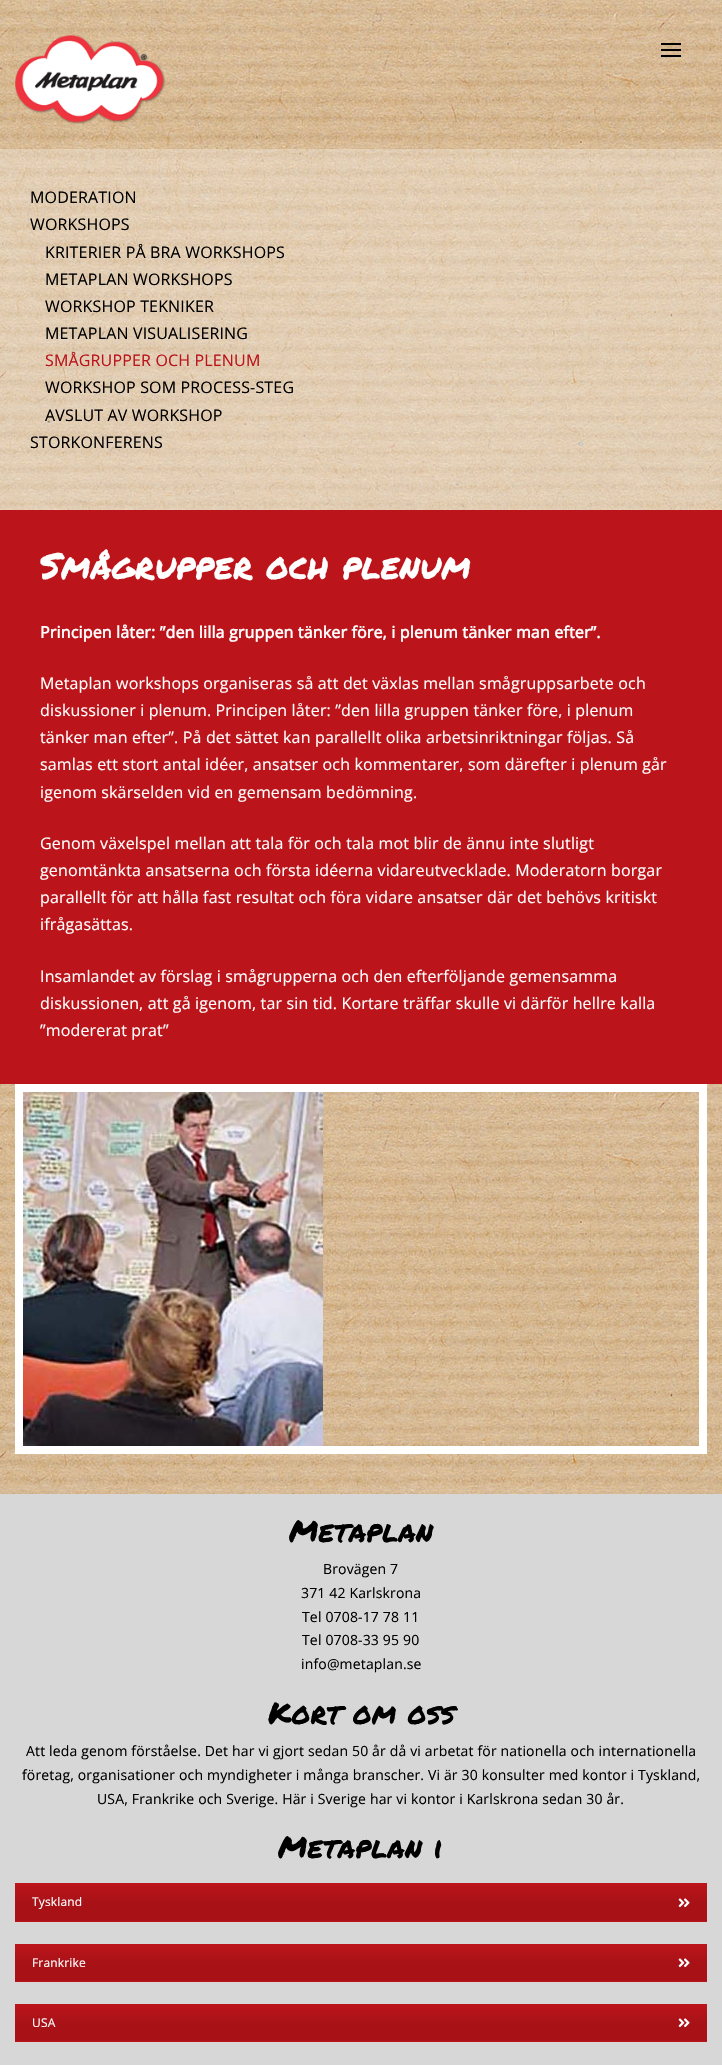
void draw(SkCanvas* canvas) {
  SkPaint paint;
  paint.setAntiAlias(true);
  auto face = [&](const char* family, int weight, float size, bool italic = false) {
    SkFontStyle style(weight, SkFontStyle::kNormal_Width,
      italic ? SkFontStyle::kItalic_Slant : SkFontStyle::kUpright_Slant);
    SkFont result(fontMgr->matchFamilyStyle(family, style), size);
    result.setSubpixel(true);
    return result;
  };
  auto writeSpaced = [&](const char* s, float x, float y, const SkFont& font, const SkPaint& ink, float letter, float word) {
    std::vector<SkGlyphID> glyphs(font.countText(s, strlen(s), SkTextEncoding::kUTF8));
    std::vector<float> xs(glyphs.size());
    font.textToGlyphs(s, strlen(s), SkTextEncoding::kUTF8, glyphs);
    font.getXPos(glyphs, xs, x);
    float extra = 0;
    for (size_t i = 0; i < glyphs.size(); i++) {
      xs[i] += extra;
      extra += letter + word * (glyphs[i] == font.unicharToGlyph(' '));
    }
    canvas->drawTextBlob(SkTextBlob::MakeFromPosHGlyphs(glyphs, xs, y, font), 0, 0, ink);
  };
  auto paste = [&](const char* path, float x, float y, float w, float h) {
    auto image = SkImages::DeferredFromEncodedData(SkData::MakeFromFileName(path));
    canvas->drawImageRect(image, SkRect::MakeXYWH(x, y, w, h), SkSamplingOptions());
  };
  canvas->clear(0xffffffff);
  paste("img/1.png", 0, 0, 722, 1494);
  paste("img/2.png", 15, 35, 150, 89);
  {
    const struct { float x, y, w, h; SkColor color; } items[] = {
      {661, 43, 20, 2, 0xff000000},
      {661, 49, 20, 2, 0xff000000},
      {661, 55, 20, 2, 0xff000000},
      {0, 149, 722, 361, 0x4dffffff},
      {0, 510, 722, 574, 0xffbb141a},
    };
    for (auto [x, y, w, h, color] : items) {
      paint.setColor(color);
      canvas->drawRect(SkRect::MakeXYWH(x, y, w, h), paint);
    }
  }
  paint.setStroke(true);
  paint.setStrokeWidth(8);
  paint.setColor(0xffffffff);
  canvas->drawRect(SkRect::MakeXYWH(19, 1088, 684, 362), paint);
  paste("img/3.png", 23, 1092, 300, 354);
  paint.setStroke(false);
  paint.setColor(0xffd7d7d7);
  canvas->drawRect(SkRect::MakeXYWH(0, 1494, 722, 571), paint);
  paint.setColor(0xffbb141a);
  canvas->drawRect(SkRect::MakeXYWH(15, 1883, 692, 39), paint);
  {
    const SkColor colors[] = {0xffbb141a, 0xffa81217, 0xffa81217};
    const float stops[] = {0, 0.5f, 1};
    const SkPoint ends[] = {{706, 1884}, {706, 1921}};
    paint.setShader(SkGradientShader::MakeLinear(ends, colors, stops, 3, SkTileMode::kClamp));
    paint.setAlpha(255);
  }
  canvas->drawRect(SkRect::MakeXYWH(15, 1886, 692, 35), paint);
  paste("img/4.png", 678, 1898, 12, 10);
  paint.setShader(nullptr);
  paint.setColor(0xffbb141a);
  canvas->drawRect(SkRect::MakeXYWH(15, 1944, 692, 38), paint);
  {
    const SkColor colors[] = {0xffbb141a, 0xffa81217, 0xffa81217};
    const float stops[] = {0, 0.5f, 1};
    const SkPoint ends[] = {{706, 1945}, {706, 1981}};
    paint.setShader(SkGradientShader::MakeLinear(ends, colors, stops, 3, SkTileMode::kClamp));
    paint.setAlpha(255);
  }
  canvas->drawRect(SkRect::MakeXYWH(15, 1947, 692, 34), paint);
  paste("img/5.png", 678, 1958, 12, 10);
  paint.setShader(nullptr);
  paint.setColor(0xffbb141a);
  canvas->drawRect(SkRect::MakeXYWH(15, 2004, 692, 38), paint);
  {
    const SkColor colors[] = {0xffbb141a, 0xffa81217, 0xffa81217};
    const float stops[] = {0, 0.5f, 1};
    const SkPoint ends[] = {{706, 2005}, {706, 2041}};
    paint.setShader(SkGradientShader::MakeLinear(ends, colors, stops, 3, SkTileMode::kClamp));
    paint.setAlpha(255);
  }
  canvas->drawRect(SkRect::MakeXYWH(15, 2007, 692, 34), paint);
  paste("img/5.png", 678, 2018, 12, 10);
  auto f0 = face("Open Sans", 400, 16);
  paint.setShader(nullptr);
  paint.setColor(0xff000000);
  {
    const struct { const char* s; float x, y; } items[] = {
      {"MODERATION", 30, 203},
      {"WORKSHOPS", 30, 230},
      {"KRITERIER PÅ BRA WORKSHOPS", 45, 258},
      {"METAPLAN WORKSHOPS", 45, 285},
      {"WORKSHOP TEKNIKER", 45, 312},
      {"METAPLAN VISUALISERING", 45, 339},
    };
    for (auto [s, x, y] : items) {
      writeSpaced(s, x, y, f0, paint, 0.16f, 0);
    }
  }
  paint.setColor(0xffbb141a);
  writeSpaced("SMÅGRUPPER OCH PLENUM", 45, 366, f0, paint, 0.16f, 0);
  paint.setColor(0xff000000);
  {
    const struct { const char* s; float x, y; } items[] = {
      {"WORKSHOP SOM PROCESS-STEG", 45, 393},
      {"AVSLUT AV WORKSHOP", 45, 421},
      {"STORKONFERENS", 30, 448},
    };
    for (auto [s, x, y] : items) {
      writeSpaced(s, x, y, f0, paint, 0.16f, 0);
    }
  }
  auto f1 = face("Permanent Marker", 400, 36);
  paint.setColor(0xffffffff);
  writeSpaced("Smågrupper och plenum", 40, 579, f1, paint, 0.16f, 0);
  auto f2 = face("Open Sans", 700, 16);
  writeSpaced("Principen låter: ”den lilla gruppen tänker före, i plenum tänker man efter”.", 40, 638, f2, paint, 0.16f, 0);
  {
    const struct { const char* s; float x, y; } items[] = {
      {"Metaplan workshops organiseras så att det växlas mellan smågruppsarbete och", 40, 689},
      {"diskussioner i plenum. Principen låter: ”den lilla gruppen tänker före, i plenum", 40, 716},
      {"tänker man efter”. På det sättet kan parallellt olika arbetsinriktningar följas. Så", 40, 743},
      {"samlas ett stort antal idéer, ansatser och kommentarer, som därefter i plenum går", 40, 770},
      {"igenom skärselden vid en gemensam bedömning.", 40, 798},
      {"Genom växelspel mellan att tala för och tala mot blir de ännu inte slutligt", 40, 849},
      {"genomtänkta ansatserna och första idéerna vidareutvecklade. Moderatorn borgar", 40, 876},
      {"parallellt för att hålla fast resultat och föra vidare ansatser där det behövs kritiskt", 40, 903},
      {"ifrågasättas.", 40, 930},
      {"Insamlandet av förslag i smågrupperna och den efterföljande gemensamma", 40, 982},
      {"diskussionen, att gå igenom, tar sin tid. Kortare träffar skulle vi därför hellre kalla", 40, 1009},
      {"”modererat prat”", 40, 1036},
    };
    for (auto [s, x, y] : items) {
      writeSpaced(s, x, y, f0, paint, 0.16f, 0);
    }
  }
  auto f3 = face("Permanent Marker", 400, 30);
  paint.setColor(0xff000000);
  writeSpaced("Metaplan", 289, 1542, f3, paint, 0.16f, 0);
  auto f4 = face("Open Sans", 400, 14);
  {
    const struct { const char* s; float x, y; } items[] = {
      {"Brovägen 7", 323, 1574},
      {"371 42 Karlskrona", 301, 1598},
      {"Tel 0708-17 78 11", 302, 1622},
      {"Tel 0708-33 95 90", 302, 1645},
      {"info@metaplan.se", 301, 1669},
    };
    for (auto [s, x, y] : items) {
      writeSpaced(s, x, y, f4, paint, 0.16f, 0);
    }
  }
  writeSpaced("Kort om oss", 268, 1724, f3, paint, 0.16f, 0);
  {
    const struct { const char* s; float x, y; } items[] = {
      {"Att leda genom förståelse. Det har vi gjort sedan 50 år då vi arbetat för nationella och internationella", 26, 1756},
      {"företag, organisationer och myndigheter i många branscher. Vi är 30 konsulter med kontor i Tyskland,", 22, 1780},
      {"USA, Frankrike och Sverige. Här i Sverige har vi kontor i Karlskrona sedan 30 år.", 97, 1804},
    };
    for (auto [s, x, y] : items) {
      writeSpaced(s, x, y, f4, paint, 0.16f, 0);
    }
  }
  writeSpaced("Metaplan i", 278, 1858, f3, paint, 0.16f, 0);
  auto f5 = face("Open Sans", 400, 12);
  paint.setColor(0xffffffff);
  {
    const struct { const char* s; float x, y; } items[] = {
      {"Tyskland", 32, 1906},
      {"Frankrike", 32, 1967},
      {"USA", 32, 2027},
    };
    for (auto [s, x, y] : items) {
      writeSpaced(s, x, y, f5, paint, 0.16f, 0);
    }
  }
}
